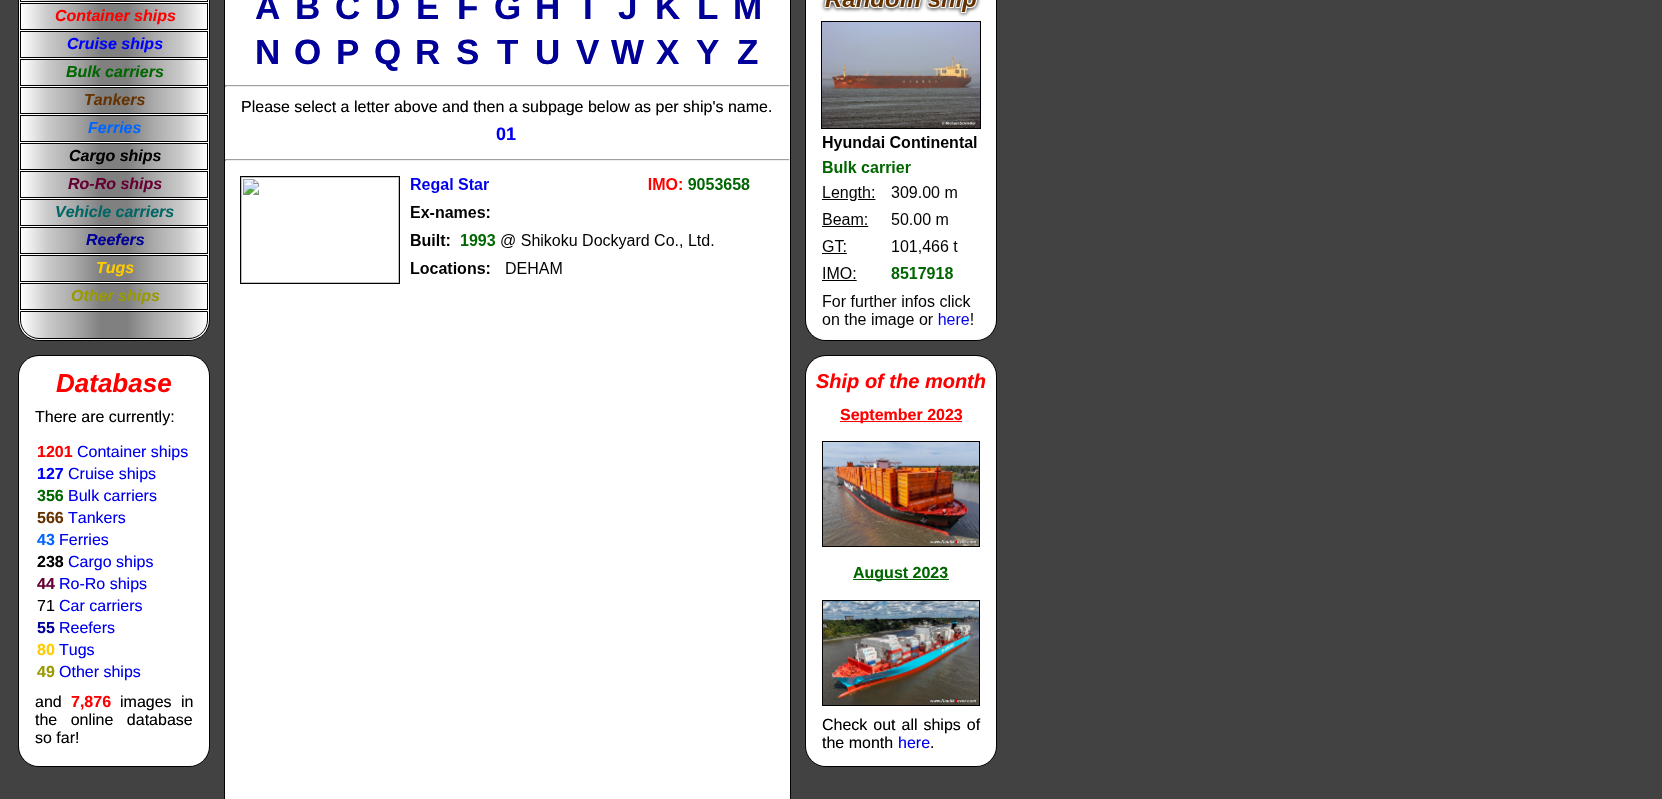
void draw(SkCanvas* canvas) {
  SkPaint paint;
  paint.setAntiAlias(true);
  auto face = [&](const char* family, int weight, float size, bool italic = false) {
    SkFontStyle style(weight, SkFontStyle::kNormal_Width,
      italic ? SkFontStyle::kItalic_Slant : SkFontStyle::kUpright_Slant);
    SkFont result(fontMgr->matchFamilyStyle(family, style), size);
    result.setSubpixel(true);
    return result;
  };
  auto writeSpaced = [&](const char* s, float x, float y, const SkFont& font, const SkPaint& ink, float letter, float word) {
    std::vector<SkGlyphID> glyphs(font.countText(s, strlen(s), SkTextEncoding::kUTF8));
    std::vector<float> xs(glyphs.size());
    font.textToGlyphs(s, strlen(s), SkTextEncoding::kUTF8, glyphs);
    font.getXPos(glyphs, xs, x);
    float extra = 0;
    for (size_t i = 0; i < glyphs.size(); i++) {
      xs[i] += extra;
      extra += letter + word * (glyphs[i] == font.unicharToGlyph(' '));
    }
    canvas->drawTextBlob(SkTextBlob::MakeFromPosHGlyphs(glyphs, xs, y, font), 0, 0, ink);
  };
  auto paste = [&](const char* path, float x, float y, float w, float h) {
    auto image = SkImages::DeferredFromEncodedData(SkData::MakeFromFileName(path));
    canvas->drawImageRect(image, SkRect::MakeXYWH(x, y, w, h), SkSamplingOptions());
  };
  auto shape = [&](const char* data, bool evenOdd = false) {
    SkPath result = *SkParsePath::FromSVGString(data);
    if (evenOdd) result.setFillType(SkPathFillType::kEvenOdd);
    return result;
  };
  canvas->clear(0xff424242);
  paint.setColor(0xffffffff);
  canvas->drawRoundRect(SkRect::MakeXYWH(18.5f, -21.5f, 191, 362), 20.5f, 20.5f, paint);
  paint.setStroke(true);
  paint.setStrokeWidth(1);
  paint.setColor(0xff000000);
  canvas->drawRoundRect(SkRect::MakeXYWH(18.5f, -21.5f, 191, 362), 20.5f, 20.5f, paint);
  paint.setStroke(false);
  {
    const SkColor colors[] = {0xffffffff, 0xffcbcbcb, 0xffa9a9a9, 0xff808080, 0xff808080, 0xffa9a9a9, 0xffcbcbcb, 0xffffffff};
    const float stops[] = {0, 0.14f, 0.29f, 0.43f, 0.57f, 0.71f, 0.86f, 1};
    const SkPoint ends[] = {{21, -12}, {207, -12}};
    paint.setShader(SkGradientShader::MakeLinear(ends, colors, stops, 8, SkTileMode::kClamp));
    paint.setAlpha(255);
  }
  canvas->drawRect(SkRect::MakeXYWH(21, 0, 186, 1), paint);
  paint.setStroke(true);
  paint.setShader(nullptr);
  paint.setColor(0xff000000);
  canvas->drawRect(SkRect::MakeXYWH(20.5f, -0.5f, 187, 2), paint);
  paint.setStroke(false);
  {
    const SkColor colors[] = {0xffffffff, 0xffcbcbcb, 0xffa9a9a9, 0xff808080, 0xff808080, 0xffa9a9a9, 0xffcbcbcb, 0xffffffff};
    const float stops[] = {0, 0.14f, 0.29f, 0.43f, 0.57f, 0.71f, 0.86f, 1};
    const SkPoint ends[] = {{21, 17}, {207, 16}};
    paint.setShader(SkGradientShader::MakeLinear(ends, colors, stops, 8, SkTileMode::kClamp));
    paint.setAlpha(255);
  }
  canvas->drawRect(SkRect::MakeXYWH(22, 4, 184, 25), paint);
  paint.setStroke(true);
  paint.setShader(nullptr);
  paint.setColor(0xff000000);
  canvas->drawRect(SkRect::MakeXYWH(20.5f, 3.5f, 187, 26), paint);
  paint.setStroke(false);
  {
    const SkColor colors[] = {0xffffffff, 0xffcbcbcb, 0xffa9a9a9, 0xff808080, 0xff808080, 0xffa9a9a9, 0xffcbcbcb, 0xffffffff};
    const float stops[] = {0, 0.14f, 0.29f, 0.43f, 0.57f, 0.71f, 0.86f, 1};
    const SkPoint ends[] = {{21, 45}, {207, 44}};
    paint.setShader(SkGradientShader::MakeLinear(ends, colors, stops, 8, SkTileMode::kClamp));
    paint.setAlpha(255);
  }
  canvas->drawRect(SkRect::MakeXYWH(22, 32, 184, 25), paint);
  paint.setStroke(true);
  paint.setShader(nullptr);
  paint.setColor(0xff000000);
  canvas->drawRect(SkRect::MakeXYWH(20.5f, 31.5f, 187, 26), paint);
  paint.setStroke(false);
  {
    const SkColor colors[] = {0xffffffff, 0xffcbcbcb, 0xffa9a9a9, 0xff808080, 0xff808080, 0xffa9a9a9, 0xffcbcbcb, 0xffffffff};
    const float stops[] = {0, 0.14f, 0.29f, 0.43f, 0.57f, 0.71f, 0.86f, 1};
    const SkPoint ends[] = {{21, 73}, {207, 73}};
    paint.setShader(SkGradientShader::MakeLinear(ends, colors, stops, 8, SkTileMode::kClamp));
    paint.setAlpha(255);
  }
  canvas->drawRect(SkRect::MakeXYWH(22, 60, 184, 25), paint);
  paint.setStroke(true);
  paint.setShader(nullptr);
  paint.setColor(0xff000000);
  canvas->drawRect(SkRect::MakeXYWH(20.5f, 59.5f, 187, 26), paint);
  paint.setStroke(false);
  {
    const SkColor colors[] = {0xffffffff, 0xffcbcbcb, 0xffa9a9a9, 0xff808080, 0xff808080, 0xffa9a9a9, 0xffcbcbcb, 0xffffffff};
    const float stops[] = {0, 0.14f, 0.29f, 0.43f, 0.57f, 0.71f, 0.86f, 1};
    const SkPoint ends[] = {{21, 101}, {207, 101}};
    paint.setShader(SkGradientShader::MakeLinear(ends, colors, stops, 8, SkTileMode::kClamp));
    paint.setAlpha(255);
  }
  canvas->drawRect(SkRect::MakeXYWH(22, 88, 184, 25), paint);
  paint.setStroke(true);
  paint.setShader(nullptr);
  paint.setColor(0xff000000);
  canvas->drawRect(SkRect::MakeXYWH(20.5f, 87.5f, 187, 26), paint);
  paint.setStroke(false);
  {
    const SkColor colors[] = {0xffffffff, 0xffcbcbcb, 0xffa9a9a9, 0xff808080, 0xff808080, 0xffa9a9a9, 0xffcbcbcb, 0xffffffff};
    const float stops[] = {0, 0.14f, 0.29f, 0.43f, 0.57f, 0.71f, 0.86f, 1};
    const SkPoint ends[] = {{21, 129}, {207, 129}};
    paint.setShader(SkGradientShader::MakeLinear(ends, colors, stops, 8, SkTileMode::kClamp));
    paint.setAlpha(255);
  }
  canvas->drawRect(SkRect::MakeXYWH(22, 116, 184, 25), paint);
  paint.setStroke(true);
  paint.setShader(nullptr);
  paint.setColor(0xff000000);
  canvas->drawRect(SkRect::MakeXYWH(20.5f, 115.5f, 187, 26), paint);
  paint.setStroke(false);
  {
    const SkColor colors[] = {0xffffffff, 0xffcbcbcb, 0xffa9a9a9, 0xff808080, 0xff808080, 0xffa9a9a9, 0xffcbcbcb, 0xffffffff};
    const float stops[] = {0, 0.14f, 0.29f, 0.43f, 0.57f, 0.71f, 0.86f, 1};
    const SkPoint ends[] = {{21, 157}, {207, 157}};
    paint.setShader(SkGradientShader::MakeLinear(ends, colors, stops, 8, SkTileMode::kClamp));
    paint.setAlpha(255);
  }
  canvas->drawRect(SkRect::MakeXYWH(22, 144, 184, 25), paint);
  paint.setStroke(true);
  paint.setShader(nullptr);
  paint.setColor(0xff000000);
  canvas->drawRect(SkRect::MakeXYWH(20.5f, 143.5f, 187, 26), paint);
  paint.setStroke(false);
  {
    const SkColor colors[] = {0xffffffff, 0xffcbcbcb, 0xffa9a9a9, 0xff808080, 0xff808080, 0xffa9a9a9, 0xffcbcbcb, 0xffffffff};
    const float stops[] = {0, 0.14f, 0.29f, 0.43f, 0.57f, 0.71f, 0.86f, 1};
    const SkPoint ends[] = {{21, 185}, {207, 185}};
    paint.setShader(SkGradientShader::MakeLinear(ends, colors, stops, 8, SkTileMode::kClamp));
    paint.setAlpha(255);
  }
  canvas->drawRect(SkRect::MakeXYWH(22, 172, 184, 25), paint);
  paint.setStroke(true);
  paint.setShader(nullptr);
  paint.setColor(0xff000000);
  canvas->drawRect(SkRect::MakeXYWH(20.5f, 171.5f, 187, 26), paint);
  paint.setStroke(false);
  {
    const SkColor colors[] = {0xffffffff, 0xffcbcbcb, 0xffa9a9a9, 0xff808080, 0xff808080, 0xffa9a9a9, 0xffcbcbcb, 0xffffffff};
    const float stops[] = {0, 0.14f, 0.29f, 0.43f, 0.57f, 0.71f, 0.86f, 1};
    const SkPoint ends[] = {{21, 213}, {207, 213}};
    paint.setShader(SkGradientShader::MakeLinear(ends, colors, stops, 8, SkTileMode::kClamp));
    paint.setAlpha(255);
  }
  canvas->drawRect(SkRect::MakeXYWH(22, 200, 184, 25), paint);
  paint.setStroke(true);
  paint.setShader(nullptr);
  paint.setColor(0xff000000);
  canvas->drawRect(SkRect::MakeXYWH(20.5f, 199.5f, 187, 26), paint);
  paint.setStroke(false);
  {
    const SkColor colors[] = {0xffffffff, 0xffcbcbcb, 0xffa9a9a9, 0xff808080, 0xff808080, 0xffa9a9a9, 0xffcbcbcb, 0xffffffff};
    const float stops[] = {0, 0.14f, 0.29f, 0.43f, 0.57f, 0.71f, 0.86f, 1};
    const SkPoint ends[] = {{21, 241}, {207, 241}};
    paint.setShader(SkGradientShader::MakeLinear(ends, colors, stops, 8, SkTileMode::kClamp));
    paint.setAlpha(255);
  }
  canvas->drawRect(SkRect::MakeXYWH(22, 228, 184, 25), paint);
  paint.setStroke(true);
  paint.setShader(nullptr);
  paint.setColor(0xff000000);
  canvas->drawRect(SkRect::MakeXYWH(20.5f, 227.5f, 187, 26), paint);
  paint.setStroke(false);
  {
    const SkColor colors[] = {0xffffffff, 0xffcbcbcb, 0xffa9a9a9, 0xff808080, 0xff808080, 0xffa9a9a9, 0xffcbcbcb, 0xffffffff};
    const float stops[] = {0, 0.14f, 0.29f, 0.43f, 0.57f, 0.71f, 0.86f, 1};
    const SkPoint ends[] = {{21, 269}, {207, 269}};
    paint.setShader(SkGradientShader::MakeLinear(ends, colors, stops, 8, SkTileMode::kClamp));
    paint.setAlpha(255);
  }
  canvas->drawRect(SkRect::MakeXYWH(22, 256, 184, 25), paint);
  paint.setStroke(true);
  paint.setShader(nullptr);
  paint.setColor(0xff000000);
  canvas->drawRect(SkRect::MakeXYWH(20.5f, 255.5f, 187, 26), paint);
  paint.setStroke(false);
  {
    const SkColor colors[] = {0xffffffff, 0xffcbcbcb, 0xffa9a9a9, 0xff808080, 0xff808080, 0xffa9a9a9, 0xffcbcbcb, 0xffffffff};
    const float stops[] = {0, 0.14f, 0.29f, 0.43f, 0.57f, 0.71f, 0.86f, 1};
    const SkPoint ends[] = {{21, 297}, {207, 297}};
    paint.setShader(SkGradientShader::MakeLinear(ends, colors, stops, 8, SkTileMode::kClamp));
    paint.setAlpha(255);
  }
  canvas->drawRect(SkRect::MakeXYWH(22, 284, 184, 25), paint);
  paint.setStroke(true);
  paint.setShader(nullptr);
  paint.setColor(0xff000000);
  canvas->drawRect(SkRect::MakeXYWH(20.5f, 283.5f, 187, 26), paint);
  canvas->save();
  canvas->clipPath(shape("M20 311H208V320C208 330.5 199.5 339 189 339H39C28.5 339 20 330.5 20 320Z"), true);
  paint.setStroke(false);
  {
    const SkColor colors[] = {0xffffffff, 0xffcbcbcb, 0xffa9a9a9, 0xff808080, 0xff808080, 0xffa9a9a9, 0xffcbcbcb, 0xffffffff};
    const float stops[] = {0, 0.14f, 0.29f, 0.43f, 0.57f, 0.71f, 0.86f, 1};
    const SkPoint ends[] = {{21, 325}, {207, 325}};
    paint.setShader(SkGradientShader::MakeLinear(ends, colors, stops, 8, SkTileMode::kClamp));
    paint.setAlpha(255);
  }
  canvas->drawRect(SkRect::MakeXYWH(21, 312, 186, 27), paint);
  canvas->restore();
  paint.setStroke(true);
  paint.setShader(nullptr);
  paint.setColor(0xff000000);
  canvas->drawPath(shape("M20.5 311.5H207.5V320C207.5 330 199 338.5 189 338.5H39C29 338.5 20.5 330 20.5 320Z"), paint);
  canvas->drawRoundRect(SkRect::MakeXYWH(18.5f, 355.5f, 191, 411), 20.5f, 20.5f, paint);
  paint.setStroke(false);
  paint.setColor(0xffffffff);
  canvas->drawRoundRect(SkRect::MakeXYWH(19, 356, 190, 410), 20, 20, paint);
  canvas->drawRect(SkRect::MakeXYWH(224.5f, -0.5f, 566, 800), paint);
  paint.setStroke(true);
  paint.setColor(0xff000000);
  canvas->drawRect(SkRect::MakeXYWH(224.5f, -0.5f, 566, 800), paint);
  paint.setStroke(false);
  {
    const struct { float x, y, w, h; SkColor color; } items[] = {
      {225, 85, 565, 1, 0xff9f9f9f},
      {789, 85, 1, 2, 0xffeeeeee},
      {225, 86, 565, 1, 0xffeeeeee},
      {225, 85, 1, 2, 0xff9f9f9f},
      {225, 159, 565, 1, 0xff9f9f9f},
      {789, 159, 1, 2, 0xffeeeeee},
      {225, 160, 565, 1, 0xffeeeeee},
      {225, 159, 1, 2, 0xff9f9f9f},
    };
    for (auto [x, y, w, h, color] : items) {
      paint.setColor(color);
      canvas->drawRect(SkRect::MakeXYWH(x, y, w, h), paint);
    }
  }
  paste("img/1.png", 240, 176, 510, 108);
  paste("img/2.png", 805, 0, 192, 341);
  paint.setStroke(true);
  paint.setColor(0xff000000);
  canvas->drawRoundRect(SkRect::MakeXYWH(805.5f, 355.5f, 191, 411), 20.5f, 20.5f, paint);
  paint.setStroke(false);
  paint.setColor(0xffffffff);
  canvas->drawRoundRect(SkRect::MakeXYWH(806, 356, 190, 410), 20, 20, paint);
  paint.setColor(0xffff0000);
  canvas->drawRect(SkRect::MakeXYWH(840, 421, 122, 1), paint);
  paint.setStroke(true);
  paint.setColor(0xff000000);
  canvas->drawRect(SkRect::MakeXYWH(822.5f, 441.5f, 157, 105), paint);
  paste("img/3.png", 823, 442, 156, 104);
  paint.setStroke(false);
  paint.setColor(0xff006600);
  canvas->drawRect(SkRect::MakeXYWH(853, 579, 96, 1), paint);
  paint.setStroke(true);
  paint.setColor(0xff000000);
  canvas->drawRect(SkRect::MakeXYWH(822.5f, 600.5f, 157, 105), paint);
  paste("img/4.png", 823, 601, 156, 104);
  auto f0 = face("Liberation Sans", 700, 16, true);
  paint.setStroke(false);
  paint.setColor(0xffff0000);
  canvas->drawString("Container ships", 55, 21, f0, paint);
  paint.setColor(0xff0000ff);
  canvas->drawString("Cruise ships", 67, 49, f0, paint);
  paint.setColor(0xff006600);
  canvas->drawString("Bulk carriers", 66, 77, f0, paint);
  paint.setColor(0xff663300);
  canvas->drawString("Tankers", 84, 105, f0, paint);
  paint.setColor(0xff0066ff);
  canvas->drawString("Ferries", 88, 133, f0, paint);
  paint.setColor(0xff000000);
  canvas->drawString("Cargo ships", 69, 161, f0, paint);
  paint.setColor(0xff660033);
  canvas->drawString("Ro-Ro ships", 68, 189, f0, paint);
  paint.setColor(0xff006666);
  canvas->drawString("Vehicle carriers", 55, 217, f0, paint);
  paint.setColor(0xff000099);
  canvas->drawString("Reefers", 86, 245, f0, paint);
  paint.setColor(0xffffcc00);
  canvas->drawString("Tugs", 96, 273, f0, paint);
  paint.setColor(0xff999900);
  canvas->drawString("Other ships", 71, 301, f0, paint);
  auto f1 = face("Liberation Sans", 700, 26, true);
  paint.setColor(0xffff0000);
  canvas->drawString("Database", 56, 392, f1, paint);
  auto f2 = face("Liberation Sans", 400, 16);
  paint.setColor(0xff000000);
  canvas->drawString("There are currently:", 35, 422, f2, paint);
  auto f3 = face("Liberation Sans", 700, 16);
  paint.setColor(0xffff0000);
  canvas->drawString("1201", 37, 457, f3, paint);
  paint.setColor(0xff0000ee);
  canvas->drawString("Container ships", 77, 457, f2, paint);
  paint.setColor(0xff0000ff);
  canvas->drawString("127", 37, 479, f3, paint);
  paint.setColor(0xff0000ee);
  canvas->drawString("Cruise ships", 68, 479, f2, paint);
  paint.setColor(0xff006600);
  canvas->drawString("356", 37, 501, f3, paint);
  paint.setColor(0xff0000ee);
  canvas->drawString("Bulk carriers", 68, 501, f2, paint);
  paint.setColor(0xff663300);
  canvas->drawString("566", 37, 523, f3, paint);
  paint.setColor(0xff0000ee);
  canvas->drawString("Tankers", 68, 523, f2, paint);
  paint.setColor(0xff0066ff);
  canvas->drawString("43", 37, 545, f3, paint);
  paint.setColor(0xff0000ee);
  canvas->drawString("Ferries", 59, 545, f2, paint);
  paint.setColor(0xff000000);
  canvas->drawString("238", 37, 567, f3, paint);
  paint.setColor(0xff0000ee);
  canvas->drawString("Cargo ships", 68, 567, f2, paint);
  paint.setColor(0xff660033);
  canvas->drawString("44", 37, 589, f3, paint);
  paint.setColor(0xff0000ee);
  canvas->drawString("Ro-Ro ships", 59, 589, f2, paint);
  paint.setColor(0xff000000);
  canvas->drawString("71", 37, 611, f2, paint);
  paint.setColor(0xff0000ee);
  canvas->drawString("Car carriers", 59, 611, f2, paint);
  paint.setColor(0xff000099);
  canvas->drawString("55", 37, 633, f3, paint);
  paint.setColor(0xff0000ee);
  canvas->drawString("Reefers", 59, 633, f2, paint);
  paint.setColor(0xffffcc00);
  canvas->drawString("80", 37, 655, f3, paint);
  paint.setColor(0xff0000ee);
  canvas->drawString("Tugs", 59, 655, f2, paint);
  paint.setColor(0xff999900);
  canvas->drawString("49", 37, 677, f3, paint);
  paint.setColor(0xff0000ee);
  canvas->drawString("Other ships", 59, 677, f2, paint);
  paint.setColor(0xff000000);
  canvas->drawString("and", 35, 707, f2, paint);
  paint.setColor(0xffff0000);
  canvas->drawString("7,876", 71, 707, f3, paint);
  paint.setColor(0xff000000);
  writeSpaced("images in", 120, 707, f2, paint, 0, 5);
  writeSpaced("the online database", 35, 725, f2, paint, 0, 9);
  canvas->drawString("so far!", 35, 743, f2, paint);
  auto f4 = face("Liberation Sans", 700, 35);
  paint.setColor(0xff000099);
  {
    const struct { const char* s; float x, y; } items[] = {
      {"A", 255, 19},
      {"B", 295, 19},
      {"C", 335, 19},
      {"D", 375, 19},
      {"E", 416, 19},
      {"F", 457, 19},
      {"G", 494, 19},
      {"H", 535, 19},
      {"I", 583, 19},
      {"J", 618, 19},
      {"K", 655, 19},
      {"L", 697, 19},
      {"M", 733, 19},
      {"N", 255, 64},
      {"O", 294, 64},
      {"P", 336, 64},
      {"Q", 374, 64},
      {"R", 415, 64},
      {"S", 456, 64},
      {"T", 497, 64},
      {"U", 535, 64},
      {"V", 576, 64},
      {"W", 611, 64},
      {"X", 656, 64},
      {"Y", 696, 64},
      {"Z", 737, 64},
    };
    for (auto [s, x, y] : items) {
      canvas->drawString(s, x, y, f4, paint);
    }
  }
  paint.setColor(0xff000000);
  canvas->drawString("Please select a letter above and then a subpage below as per ship's name.", 241, 112, f2, paint);
  auto f5 = face("Liberation Sans", 700, 18);
  paint.setColor(0xff0000ee);
  canvas->drawString("01", 496, 140, f5, paint);
  auto f6 = face("Liberation Sans", 700, 20, true);
  paint.setColor(0xffff0000);
  canvas->drawString("Ship of the month", 816, 388, f6, paint);
  canvas->drawString("September 2023", 840, 420, f3, paint);
  paint.setColor(0xff006600);
  canvas->drawString("August 2023", 853, 578, f3, paint);
  paint.setColor(0xff000000);
  writeSpaced("Check out all ships of", 822, 730, f2, paint, 0, 1.5f);
  canvas->drawString("the month", 822, 748, f2, paint);
  paint.setColor(0xff0000ee);
  canvas->drawString("here", 898, 748, f2, paint);
  paint.setColor(0xff000000);
  canvas->drawString(".", 930, 748, f2, paint);
}
